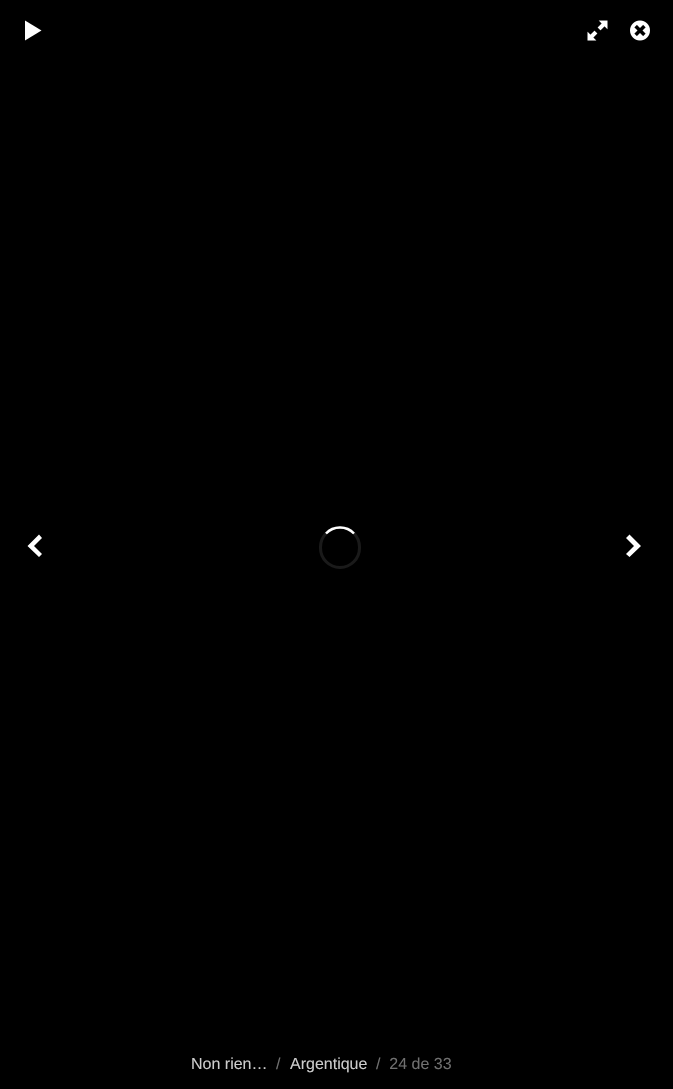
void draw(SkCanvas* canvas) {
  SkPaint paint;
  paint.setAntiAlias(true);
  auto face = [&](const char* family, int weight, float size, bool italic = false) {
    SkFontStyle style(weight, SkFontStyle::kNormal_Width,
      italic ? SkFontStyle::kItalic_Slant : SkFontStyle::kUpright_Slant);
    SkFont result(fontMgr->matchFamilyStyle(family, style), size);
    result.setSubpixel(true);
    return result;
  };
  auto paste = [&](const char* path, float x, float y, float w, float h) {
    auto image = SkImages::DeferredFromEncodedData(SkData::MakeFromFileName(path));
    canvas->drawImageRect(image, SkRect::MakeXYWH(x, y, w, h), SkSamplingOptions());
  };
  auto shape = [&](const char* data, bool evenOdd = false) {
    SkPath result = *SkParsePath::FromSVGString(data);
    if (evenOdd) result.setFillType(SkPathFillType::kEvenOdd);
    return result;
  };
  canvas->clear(0xff000000);
  paint.setColor(0xffffffff);
  canvas->drawPath(shape("M25 40.5V20.5L41.5 30.5Z"), paint);
  paste("img/1.png", 587, 20, 21, 21);
  paste("img/2.png", 630, 20, 20, 21);
  canvas->drawPath(shape("M27.5 546L39 534.5L42 538L34 546L42 554L39 557Z"), paint);
  paint.setStroke(true);
  paint.setStrokeWidth(3);
  paint.setColor(0xff1a1a1a);
  canvas->drawRoundRect(SkRect::MakeXYWH(320.5f, 527.5f, 39, 40), 19.5f, 19.5f, paint);
  paint.setStrokeWidth(2.5f);
  paint.setColor(0xffffffff);
  canvas->drawPath(shape("M326 533.5C333.5 525.5 346.5 525.5 354 533.5"), paint);
  paint.setStroke(false);
  canvas->drawPath(shape("M626 554L634 546L626 538L629.5 534.5L641 546L629.5 557Z"), paint);
  auto f0 = face("Liberation Sans", 400, 16);
  paint.setColor(0xffcccccc);
  canvas->drawString("Non rien…", 191, 1069, f0, paint);
  paint.setColor(0xff707070);
  canvas->drawString("/", 276, 1069, f0, paint);
  paint.setColor(0xffcccccc);
  canvas->drawString("Argentique", 290, 1069, f0, paint);
  paint.setColor(0xff707070);
  canvas->drawString("/  24 de 33", 376, 1069, f0, paint);
}
